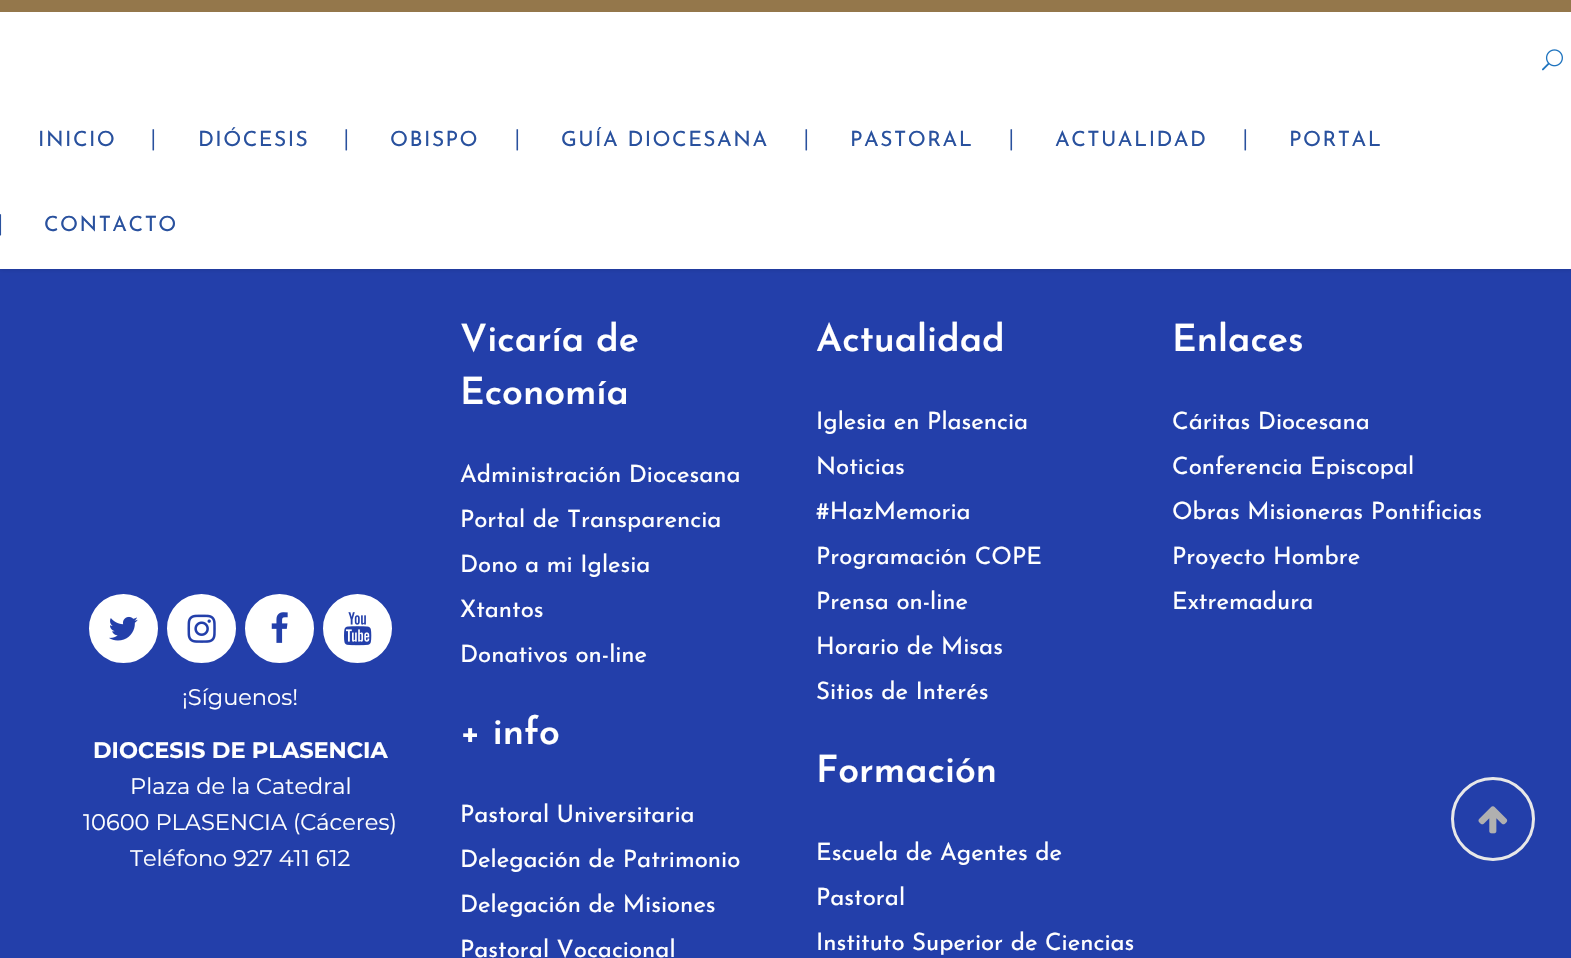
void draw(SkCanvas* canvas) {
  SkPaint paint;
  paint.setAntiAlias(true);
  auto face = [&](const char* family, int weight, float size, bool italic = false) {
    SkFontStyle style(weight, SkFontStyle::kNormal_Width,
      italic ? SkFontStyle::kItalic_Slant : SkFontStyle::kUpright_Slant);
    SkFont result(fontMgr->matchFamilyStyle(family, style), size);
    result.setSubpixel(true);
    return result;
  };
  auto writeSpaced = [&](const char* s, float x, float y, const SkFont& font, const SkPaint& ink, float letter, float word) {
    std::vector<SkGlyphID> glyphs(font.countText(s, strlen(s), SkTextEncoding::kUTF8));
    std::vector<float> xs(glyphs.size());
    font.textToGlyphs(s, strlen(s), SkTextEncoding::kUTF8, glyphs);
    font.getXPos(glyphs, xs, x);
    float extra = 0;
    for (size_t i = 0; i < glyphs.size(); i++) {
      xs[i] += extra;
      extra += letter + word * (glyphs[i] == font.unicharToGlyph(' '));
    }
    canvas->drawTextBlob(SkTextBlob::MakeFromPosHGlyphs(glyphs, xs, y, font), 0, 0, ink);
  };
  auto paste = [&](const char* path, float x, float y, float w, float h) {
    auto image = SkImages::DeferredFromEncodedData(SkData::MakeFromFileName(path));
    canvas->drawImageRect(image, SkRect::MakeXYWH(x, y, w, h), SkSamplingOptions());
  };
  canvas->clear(0xff233faa);
  paint.setColor(0x1c000000);
  paint.setMaskFilter(SkMaskFilter::MakeBlur(kNormal_SkBlurStyle, 2));
  canvas->drawRect(SkRect::MakeXYWH(0, 2, 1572, 268), paint);
  paint.setMaskFilter(nullptr);
  paint.setColor(0xffffffff);
  canvas->drawRect(SkRect::MakeXYWH(0, 12, 1571, 257), paint);
  paint.setColor(0xff94774b);
  canvas->drawRect(SkRect::MakeXYWH(0, 0, 1571, 12), paint);
  paste("img/1.png", 1542, 49, 21, 22);
  paint.setColor(0xffffffff);
  canvas->drawCircle(123.5f, 628.5f, 33.5f, paint);
  paint.setStroke(true);
  paint.setStrokeWidth(2);
  canvas->drawCircle(123.5f, 628.5f, 33.5f, paint);
  paste("img/2.png", 109, 616, 29, 25);
  paint.setStroke(false);
  canvas->drawCircle(201.5f, 628.5f, 33.5f, paint);
  paint.setStroke(true);
  canvas->drawCircle(201.5f, 628.5f, 33.5f, paint);
  paste("img/3.png", 187, 614, 29, 29);
  paint.setStroke(false);
  canvas->drawCircle(279.5f, 628.5f, 33.5f, paint);
  paint.setStroke(true);
  canvas->drawCircle(279.5f, 628.5f, 33.5f, paint);
  paste("img/4.png", 271, 612, 17, 31);
  paint.setStroke(false);
  canvas->drawCircle(357.5f, 628.5f, 33.5f, paint);
  paint.setStroke(true);
  canvas->drawCircle(357.5f, 628.5f, 33.5f, paint);
  paste("img/5.png", 344, 612, 28, 34);
  paint.setStrokeWidth(3);
  paint.setColor(0xffe8e8e8);
  canvas->drawCircle(1493, 819, 40.5f, paint);
  paste("img/6.png", 1478, 806, 30, 28);
  auto f0 = face("Josefin Sans", 400, 21);
  paint.setStroke(false);
  paint.setColor(0xff29519e);
  writeSpaced("INICIO", 38, 146, f0, paint, 1.5f, 0);
  auto f1 = face("Montserrat", 400, 22.5f);
  canvas->drawString("|", 150, 146, f1, paint);
  writeSpaced("DIÓCESIS", 198, 146, f0, paint, 1.5f, 0);
  canvas->drawString("|", 343, 146, f1, paint);
  writeSpaced("OBISPO", 390, 146, f0, paint, 1.5f, 0);
  canvas->drawString("|", 514, 146, f1, paint);
  writeSpaced("GUÍA DIOCESANA", 561, 146, f0, paint, 1.5f, 0);
  canvas->drawString("|", 803, 146, f1, paint);
  writeSpaced("PASTORAL", 850, 146, f0, paint, 1.5f, 0);
  canvas->drawString("|", 1008, 146, f1, paint);
  writeSpaced("ACTUALIDAD", 1055, 146, f0, paint, 1.5f, 0);
  canvas->drawString("|", 1242, 146, f1, paint);
  writeSpaced("PORTAL", 1289, 146, f0, paint, 1.5f, 0);
  canvas->drawString("|", -3, 231, f1, paint);
  writeSpaced("CONTACTO", 44, 231, f0, paint, 1.5f, 0);
  auto f2 = face("Josefin Sans", 600, 37.5f);
  paint.setColor(0xffffffff);
  canvas->drawString("Vicaría de", 460, 351, f2, paint);
  canvas->drawString("Economía", 460, 404, f2, paint);
  auto f3 = face("Josefin Sans", 400, 24);
  {
    const struct { const char* s; float x, y; } items[] = {
      {"Administración Diocesana", 460, 482},
      {"Portal de Transparencia", 460, 527},
      {"Dono a mi Iglesia", 460, 572},
      {"Xtantos", 460, 617},
      {"Donativos on-line", 460, 662},
    };
    for (auto [s, x, y] : items) {
      canvas->drawString(s, x, y, f3, paint);
    }
  }
  canvas->drawString("+ info", 460, 744, f2, paint);
  {
    const struct { const char* s; float x, y; } items[] = {
      {"Pastoral Universitaria", 460, 822},
      {"Delegación de Patrimonio", 460, 867},
      {"Delegación de Misiones", 460, 912},
      {"Pastoral Vocacional", 460, 957},
    };
    for (auto [s, x, y] : items) {
      canvas->drawString(s, x, y, f3, paint);
    }
  }
  canvas->drawString("Actualidad", 816, 351, f2, paint);
  {
    const struct { const char* s; float x, y; } items[] = {
      {"Iglesia en Plasencia", 816, 429},
      {"Noticias", 816, 474},
      {"#HazMemoria", 816, 519},
      {"Programación COPE", 816, 564},
      {"Prensa on-line", 816, 609},
      {"Horario de Misas", 816, 654},
      {"Sitios de Interés", 816, 699},
    };
    for (auto [s, x, y] : items) {
      canvas->drawString(s, x, y, f3, paint);
    }
  }
  canvas->drawString("Formación", 816, 782, f2, paint);
  {
    const struct { const char* s; float x, y; } items[] = {
      {"Escuela de Agentes de", 816, 860},
      {"Pastoral", 816, 905},
      {"Instituto Superior de Ciencias", 816, 950},
    };
    for (auto [s, x, y] : items) {
      canvas->drawString(s, x, y, f3, paint);
    }
  }
  canvas->drawString("Enlaces", 1172, 351, f2, paint);
  {
    const struct { const char* s; float x, y; } items[] = {
      {"Cáritas Diocesana", 1172, 429},
      {"Conferencia Episcopal", 1172, 474},
      {"Obras Misioneras Pontificias", 1172, 519},
      {"Proyecto Hombre", 1172, 564},
      {"Extremadura", 1172, 609},
    };
    for (auto [s, x, y] : items) {
      canvas->drawString(s, x, y, f3, paint);
    }
  }
  canvas->drawString("¡Síguenos!", 182, 705, f1, paint);
  auto f4 = face("Montserrat", 700, 22.5f);
  canvas->drawString("DIOCESIS DE PLASENCIA", 93, 758, f4, paint);
  {
    const struct { const char* s; float x, y; } items[] = {
      {"Plaza de la Catedral", 130, 794},
      {"10600 PLASENCIA (Cáceres)", 83, 830},
      {"Teléfono 927 411 612", 130, 866},
    };
    for (auto [s, x, y] : items) {
      canvas->drawString(s, x, y, f1, paint);
    }
  }
}
